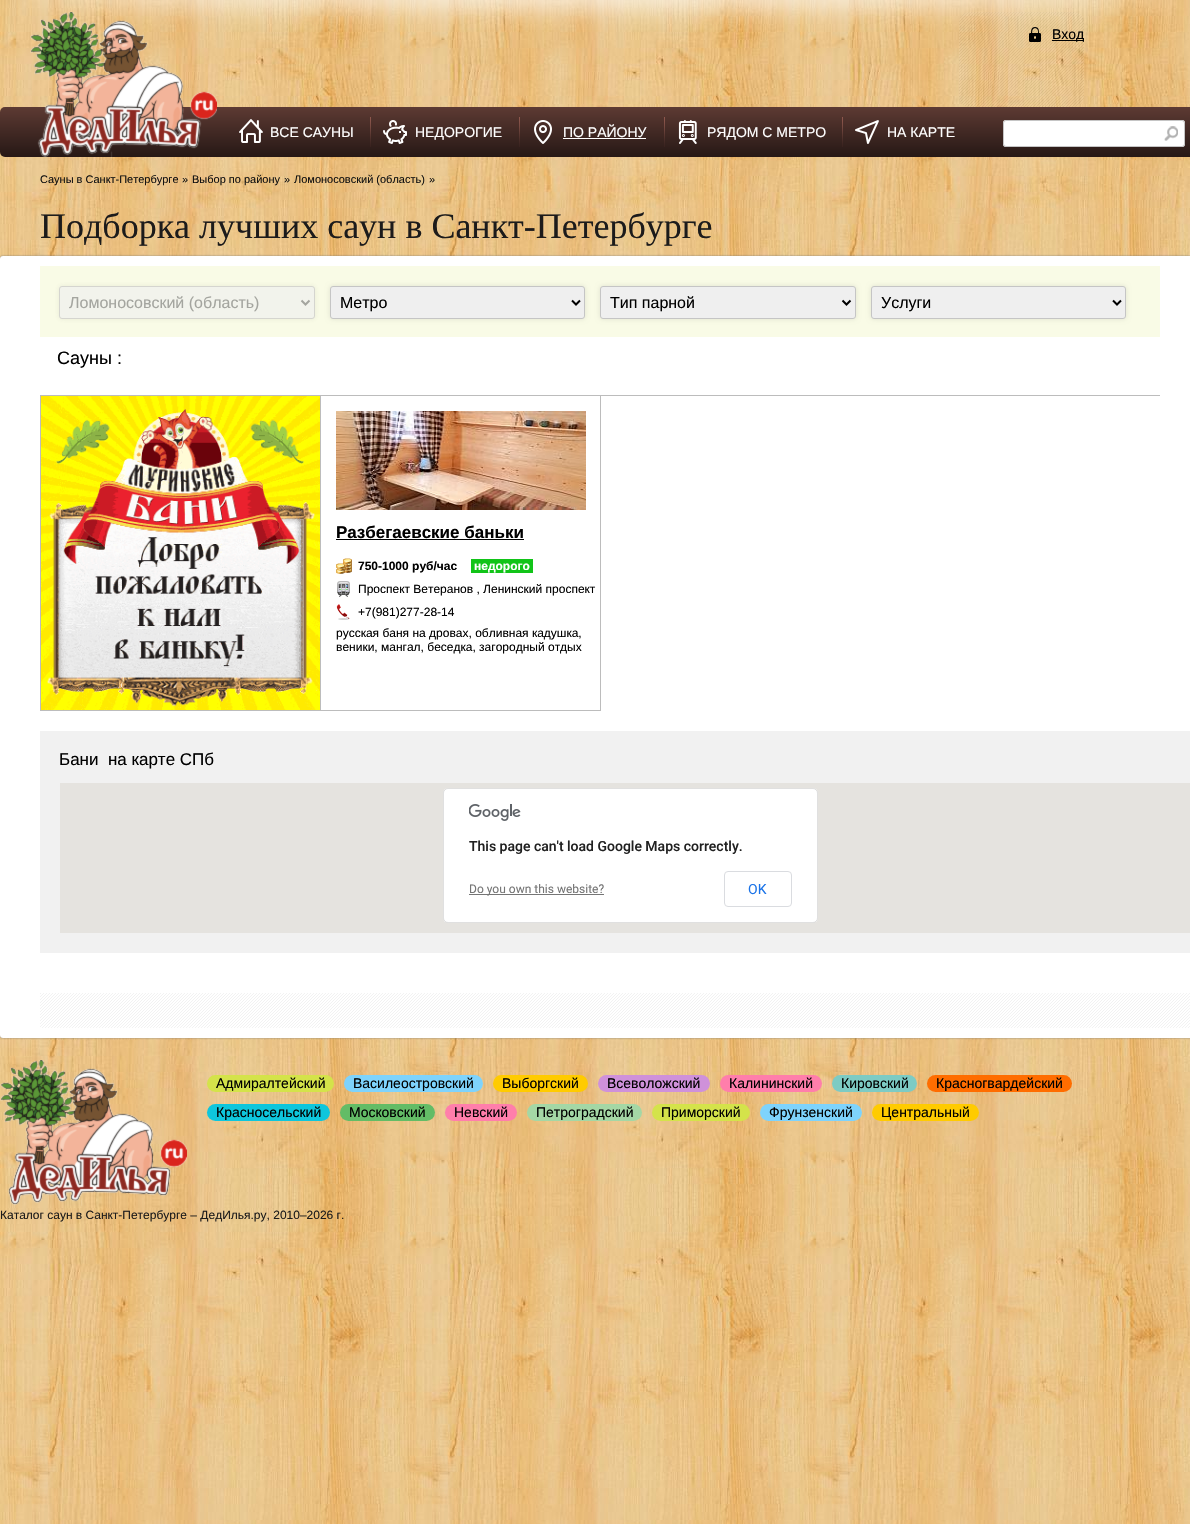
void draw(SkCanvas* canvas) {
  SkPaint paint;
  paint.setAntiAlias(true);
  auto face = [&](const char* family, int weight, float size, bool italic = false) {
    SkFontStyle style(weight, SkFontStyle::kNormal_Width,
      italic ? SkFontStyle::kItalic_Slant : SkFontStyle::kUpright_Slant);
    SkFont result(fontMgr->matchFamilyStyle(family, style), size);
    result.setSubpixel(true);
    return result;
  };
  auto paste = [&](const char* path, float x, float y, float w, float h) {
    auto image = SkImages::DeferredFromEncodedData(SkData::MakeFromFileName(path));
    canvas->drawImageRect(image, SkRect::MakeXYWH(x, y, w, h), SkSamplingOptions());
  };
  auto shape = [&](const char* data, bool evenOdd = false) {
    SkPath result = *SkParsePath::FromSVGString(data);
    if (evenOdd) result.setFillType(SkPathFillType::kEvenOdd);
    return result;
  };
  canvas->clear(0xffffffff);
  paste("img/1.png", 0, 0, 1190, 1524);
  paste("img/4.png", 959, 12, 125, 95);
  paste("img/5.png", 1029, 27, 12, 15);
  paint.setColor(0xff000000);
  canvas->drawRect(SkRect::MakeXYWH(1052, 40, 32, 1), paint);
  {
    const SkColor colors[] = {0xff5d3a33, 0xff261815};
    const float stops[] = {0, 1};
    const SkPoint ends[] = {{600, 107}, {600, 157}};
    paint.setShader(SkGradientShader::MakeLinear(ends, colors, stops, 2, SkTileMode::kClamp));
    paint.setAlpha(255);
  }
  canvas->drawRoundRect(SkRect::MakeXYWH(0, 107, 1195, 50), 5, 5, paint);
  paste("img/6.png", 370, 117, 1, 30);
  paste("img/7.png", 239, 119, 24, 24);
  paste("img/6.png", 519, 117, 1, 30);
  paste("img/8.png", 383, 120, 24, 24);
  paste("img/6.png", 664, 117, 1, 30);
  paste("img/9.png", 534, 120, 18, 24);
  paint.setShader(nullptr);
  paint.setColor(0xffffffff);
  canvas->drawRect(SkRect::MakeXYWH(563, 138, 83, 1), paint);
  paste("img/6.png", 842, 117, 1, 30);
  paste("img/10.png", 678, 120, 19, 24);
  paste("img/11.png", 855, 120, 24, 24);
  canvas->drawRoundRect(SkRect::MakeXYWH(1003, 120, 182, 27), 3, 3, paint);
  paste("img/12.png", 1164, 126, 14, 15);
  paint.setStroke(true);
  paint.setStrokeWidth(1);
  paint.setColor(0xffc5c5c5);
  canvas->drawRoundRect(SkRect::MakeXYWH(1003.5f, 120.5f, 181, 26), 2.5f, 2.5f, paint);
  paint.setStroke(false);
  paint.setColor(0xff777777);
  paint.setMaskFilter(SkMaskFilter::MakeBlur(kNormal_SkBlurStyle, 1));
  canvas->drawRoundRect(SkRect::MakeXYWH(0, 256, 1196, 782), 3, 3, paint);
  paint.setMaskFilter(nullptr);
  paint.setColor(0xffffffff);
  canvas->drawRoundRect(SkRect::MakeXYWH(0, 256, 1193, 782), 3, 3, paint);
  paint.setColor(0xfff9fbe6);
  canvas->drawRect(SkRect::MakeXYWH(40, 266, 1120, 71), paint);
  paint.setColor(0x1a4b4b45);
  paint.setMaskFilter(SkMaskFilter::MakeBlur(kNormal_SkBlurStyle, 2.5f));
  canvas->drawRoundRect(SkRect::MakeXYWH(59, 286, 256, 33), 3, 3, paint);
  paint.setMaskFilter(nullptr);
  paint.setColor(0xfff2f3ec);
  canvas->drawRoundRect(SkRect::MakeXYWH(59.5f, 286.5f, 255, 32), 2.5f, 2.5f, paint);
  paint.setStroke(true);
  paint.setColor(0xffd5d5cf);
  canvas->drawRoundRect(SkRect::MakeXYWH(59.5f, 286.5f, 255, 32), 2.5f, 2.5f, paint);
  paint.setStrokeWidth(2);
  paint.setColor(0xffa4a59f);
  canvas->drawPath(shape("M301.5 300.5L305.5 304.5L309.5 300.5"), paint);
  paint.setStroke(false);
  paint.setColor(0x1a000000);
  paint.setMaskFilter(SkMaskFilter::MakeBlur(kNormal_SkBlurStyle, 2.5f));
  canvas->drawRoundRect(SkRect::MakeXYWH(330, 286, 255, 33), 3, 3, paint);
  paint.setMaskFilter(nullptr);
  paint.setColor(0xffefefef);
  canvas->drawRoundRect(SkRect::MakeXYWH(330.5f, 286.5f, 254, 32), 2.5f, 2.5f, paint);
  paint.setStroke(true);
  paint.setStrokeWidth(1);
  paint.setColor(0xffc5c5c5);
  canvas->drawRoundRect(SkRect::MakeXYWH(330.5f, 286.5f, 254, 32), 2.5f, 2.5f, paint);
  paint.setStrokeWidth(2);
  paint.setColor(0xff000000);
  canvas->drawPath(shape("M572 300.5L576 304.5L580 300.5"), paint);
  paint.setStroke(false);
  paint.setColor(0x1a000000);
  paint.setMaskFilter(SkMaskFilter::MakeBlur(kNormal_SkBlurStyle, 2.5f));
  canvas->drawRoundRect(SkRect::MakeXYWH(600, 286, 256, 33), 3, 3, paint);
  paint.setMaskFilter(nullptr);
  paint.setColor(0xffefefef);
  canvas->drawRoundRect(SkRect::MakeXYWH(600.5f, 286.5f, 255, 32), 2.5f, 2.5f, paint);
  paint.setStroke(true);
  paint.setStrokeWidth(1);
  paint.setColor(0xffc5c5c5);
  canvas->drawRoundRect(SkRect::MakeXYWH(600.5f, 286.5f, 255, 32), 2.5f, 2.5f, paint);
  paint.setStrokeWidth(2);
  paint.setColor(0xff000000);
  canvas->drawPath(shape("M842.5 300.5L846.5 304.5L850.5 300.5"), paint);
  paint.setStroke(false);
  paint.setColor(0x1a000000);
  paint.setMaskFilter(SkMaskFilter::MakeBlur(kNormal_SkBlurStyle, 2.5f));
  canvas->drawRoundRect(SkRect::MakeXYWH(871, 286, 255, 33), 3, 3, paint);
  paint.setMaskFilter(nullptr);
  paint.setColor(0xffefefef);
  canvas->drawRoundRect(SkRect::MakeXYWH(871.5f, 286.5f, 254, 32), 2.5f, 2.5f, paint);
  paint.setStroke(true);
  paint.setStrokeWidth(1);
  paint.setColor(0xffc5c5c5);
  canvas->drawRoundRect(SkRect::MakeXYWH(871.5f, 286.5f, 254, 32), 2.5f, 2.5f, paint);
  paint.setStrokeWidth(2);
  paint.setColor(0xff000000);
  canvas->drawPath(shape("M1113 300.5L1117 304.5L1121 300.5"), paint);
  paint.setStroke(false);
  {
    const struct { float x, y, w, h; SkColor color; } items[] = {
      {40, 395, 1120, 1, 0xffbcbcbc},
      {40, 395, 1, 316, 0xffbcbcbc},
      {320, 396, 1, 315, 0xffbcbcbc},
      {41, 710, 280, 1, 0xffbcbcbc},
    };
    for (auto [x, y, w, h, color] : items) {
      paint.setColor(color);
      canvas->drawRect(SkRect::MakeXYWH(x, y, w, h), paint);
    }
  }
  paste("img/13.png", 41, 396, 279, 314);
  canvas->drawRect(SkRect::MakeXYWH(600, 396, 1, 315), paint);
  canvas->drawRect(SkRect::MakeXYWH(321, 710, 280, 1), paint);
  paste("img/14.png", 336, 411, 250, 99);
  paint.setColor(0xff000000);
  canvas->drawRect(SkRect::MakeXYWH(336, 539, 188, 1), paint);
  paste("img/15.png", 336, 558, 16, 16);
  paint.setColor(0xff11c418);
  canvas->drawRect(SkRect::MakeXYWH(471, 559, 62, 14), paint);
  paste("img/16.png", 337, 581, 13, 16);
  paste("img/17.png", 336, 604, 14, 16);
  paint.setColor(0xfff1f1f1);
  canvas->drawRect(SkRect::MakeXYWH(40, 731, 1150, 222), paint);
  paint.setColor(0xffe5e3df);
  canvas->drawRect(SkRect::MakeXYWH(60, 783, 1130, 150), paint);
  paint.setColor(0xffffffff);
  canvas->drawRoundRect(SkRect::MakeXYWH(443, 788, 375, 135), 5, 5, paint);
  paint.setStroke(true);
  paint.setStrokeWidth(1);
  paint.setColor(0x1f000000);
  canvas->drawRoundRect(SkRect::MakeXYWH(443.5f, 788.5f, 374, 134), 4.5f, 4.5f, paint);
  paste("img/18.png", 469, 804, 52, 17);
  paint.setStroke(false);
  paint.setColor(0xff757575);
  canvas->drawRect(SkRect::MakeXYWH(469, 894, 135, 1), paint);
  paint.setStroke(true);
  paint.setColor(0xffdadce0);
  canvas->drawRoundRect(SkRect::MakeXYWH(724.5f, 871.5f, 67, 35), 3.5f, 3.5f, paint);
  paste("img/19.png", 40, 993, 1150, 35);
  paste("img/20.png", 0, 1060, 187, 146);
  paint.setStroke(false);
  paint.setColor(0xffd4e34a);
  canvas->drawRoundRect(SkRect::MakeXYWH(207, 1075, 127, 17), 8.5f, 8.5f, paint);
  paint.setColor(0xff7ed3fc);
  canvas->drawRoundRect(SkRect::MakeXYWH(344, 1075, 139, 17), 8.5f, 8.5f, paint);
  paint.setColor(0xffffcb00);
  canvas->drawRoundRect(SkRect::MakeXYWH(493, 1075, 95, 17), 8.5f, 8.5f, paint);
  paint.setColor(0xffcf91da);
  canvas->drawRoundRect(SkRect::MakeXYWH(598, 1075, 112, 17), 8.5f, 8.5f, paint);
  paint.setColor(0xffff7eab);
  canvas->drawRoundRect(SkRect::MakeXYWH(720, 1075, 102, 17), 8.5f, 8.5f, paint);
  paint.setColor(0xff7dcbc4);
  canvas->drawRoundRect(SkRect::MakeXYWH(832, 1075, 85, 17), 8.5f, 8.5f, paint);
  paint.setColor(0xffff6d00);
  canvas->drawRoundRect(SkRect::MakeXYWH(927, 1075, 145, 17), 8.5f, 8.5f, paint);
  paint.setColor(0xff0ec6dc);
  canvas->drawRoundRect(SkRect::MakeXYWH(207, 1104, 123, 17), 8.5f, 8.5f, paint);
  paint.setColor(0xff63bc66);
  canvas->drawRoundRect(SkRect::MakeXYWH(340, 1104, 95, 17), 8.5f, 8.5f, paint);
  paint.setColor(0xffff7eab);
  canvas->drawRoundRect(SkRect::MakeXYWH(445, 1104, 72, 17), 8.5f, 8.5f, paint);
  paint.setColor(0xffa4d7a5);
  canvas->drawRoundRect(SkRect::MakeXYWH(527, 1104, 115, 17), 8.5f, 8.5f, paint);
  paint.setColor(0xffd4e34a);
  canvas->drawRoundRect(SkRect::MakeXYWH(652, 1104, 98, 17), 8.5f, 8.5f, paint);
  paint.setColor(0xff7ed3fc);
  canvas->drawRoundRect(SkRect::MakeXYWH(760, 1104, 102, 17), 8.5f, 8.5f, paint);
  paint.setColor(0xffffcb00);
  canvas->drawRoundRect(SkRect::MakeXYWH(872, 1104, 107, 17), 8.5f, 8.5f, paint);
  auto f0 = face("Liberation Sans", 400, 14);
  paint.setColor(0xff000000);
  canvas->drawString("Вход", 1052, 39, f0, paint);
  paste("img/2.png", 15, 0, 1170, 30);
  paste("img/3.png", 30, 12, 187, 146);
  paint.setColor(0xffffffff);
  {
    const struct { const char* s; float x, y; } items[] = {
      {"ВСЕ САУНЫ", 270, 137},
      {"НЕДОРОГИЕ", 415, 137},
      {"ПО РАЙОНУ", 563, 137},
      {"РЯДОМ С МЕТРО", 707, 137},
      {"НА КАРТЕ", 887, 137},
    };
    for (auto [s, x, y] : items) {
      canvas->drawString(s, x, y, f0, paint);
    }
  }
  auto f1 = face("Liberation Sans", 400, 11);
  paint.setColor(0xff111111);
  {
    const struct { const char* s; float x, y; } items[] = {
      {"Сауны в Санкт-Петербурге", 40, 183},
      {"»", 182, 183},
      {"Выбор по району", 192, 183},
      {"»", 284, 183},
      {"Ломоносовский (область)", 294, 183},
      {"»", 429, 183},
    };
    for (auto [s, x, y] : items) {
      canvas->drawString(s, x, y, f1, paint);
    }
  }
  auto f2 = face("Liberation Serif", 400, 36);
  paint.setColor(0xff1c1b1b);
  canvas->drawString("Подборка лучших саун в Санкт-Петербурге", 40, 238, f2, paint);
  auto f3 = face("Liberation Sans", 400, 16);
  paint.setColor(0xffa4a59f);
  canvas->drawString("Ломоносовский (область)", 69, 308, f3, paint);
  paint.setColor(0xff000000);
  {
    const struct { const char* s; float x, y; } items[] = {
      {"Метро", 340, 308},
      {"Тип парной", 610, 308},
      {"Услуги", 881, 308},
    };
    for (auto [s, x, y] : items) {
      canvas->drawString(s, x, y, f3, paint);
    }
  }
  auto f4 = face("Liberation Sans", 400, 18);
  canvas->drawString("Сауны :", 57, 364, f4, paint);
  auto f5 = face("Liberation Sans", 700, 17);
  canvas->drawString("Разбегаевские баньки", 336, 538, f5, paint);
  auto f6 = face("Liberation Sans", 700, 12);
  canvas->drawString("750-1000 руб/час", 358, 570, f6, paint);
  paint.setColor(0xffffffff);
  canvas->drawString("недорого", 474, 570, f6, paint);
  auto f7 = face("Liberation Sans", 400, 12);
  paint.setColor(0xff000000);
  {
    const struct { const char* s; float x, y; } items[] = {
      {"Проспект Ветеранов , Ленинский проспект", 358, 593},
      {"+7(981)277-28-14", 358, 616},
      {"русская баня на дровах, обливная кадушка,", 336, 637},
      {"веники, мангал, беседка, загородный отдых", 336, 651},
    };
    for (auto [s, x, y] : items) {
      canvas->drawString(s, x, y, f7, paint);
    }
  }
  auto f8 = face("Liberation Sans", 400, 17);
  canvas->drawString("Бани  на карте СПб", 59, 765, f8, paint);
  auto f9 = face("Roboto", 500, 14);
  paint.setColor(0xff212121);
  canvas->drawString("This page can't load Google Maps correctly.", 469, 851, f9, paint);
  auto f10 = face("Roboto", 400, 12);
  paint.setColor(0xff757575);
  canvas->drawString("Do you own this website?", 469, 893, f10, paint);
  auto f11 = face("Roboto", 400, 14);
  paint.setColor(0xff1a73e8);
  canvas->drawString("OK", 748, 894, f11, paint);
  paint.setColor(0xff000000);
  {
    const struct { const char* s; float x, y; } items[] = {
      {"Адмиралтейский", 216, 1088},
      {"Василеостровский", 353, 1088},
      {"Выборгский", 502, 1088},
      {"Всеволожский", 607, 1088},
      {"Калининский", 729, 1088},
      {"Кировский", 841, 1088},
      {"Красногвардейский", 936, 1088},
      {"Красносельский", 216, 1117},
      {"Московский", 349, 1117},
      {"Невский", 454, 1117},
      {"Петроградский", 536, 1117},
      {"Приморский", 661, 1117},
      {"Фрунзенский", 769, 1117},
      {"Центральный", 881, 1117},
    };
    for (auto [s, x, y] : items) {
      canvas->drawString(s, x, y, f0, paint);
    }
  }
  paint.setColor(0xff1c1b1b);
  canvas->drawString("Каталог саун в Санкт-Петербурге – ДедИлья.ру, 2010–2026 г.", 0, 1219, f7, paint);
}
